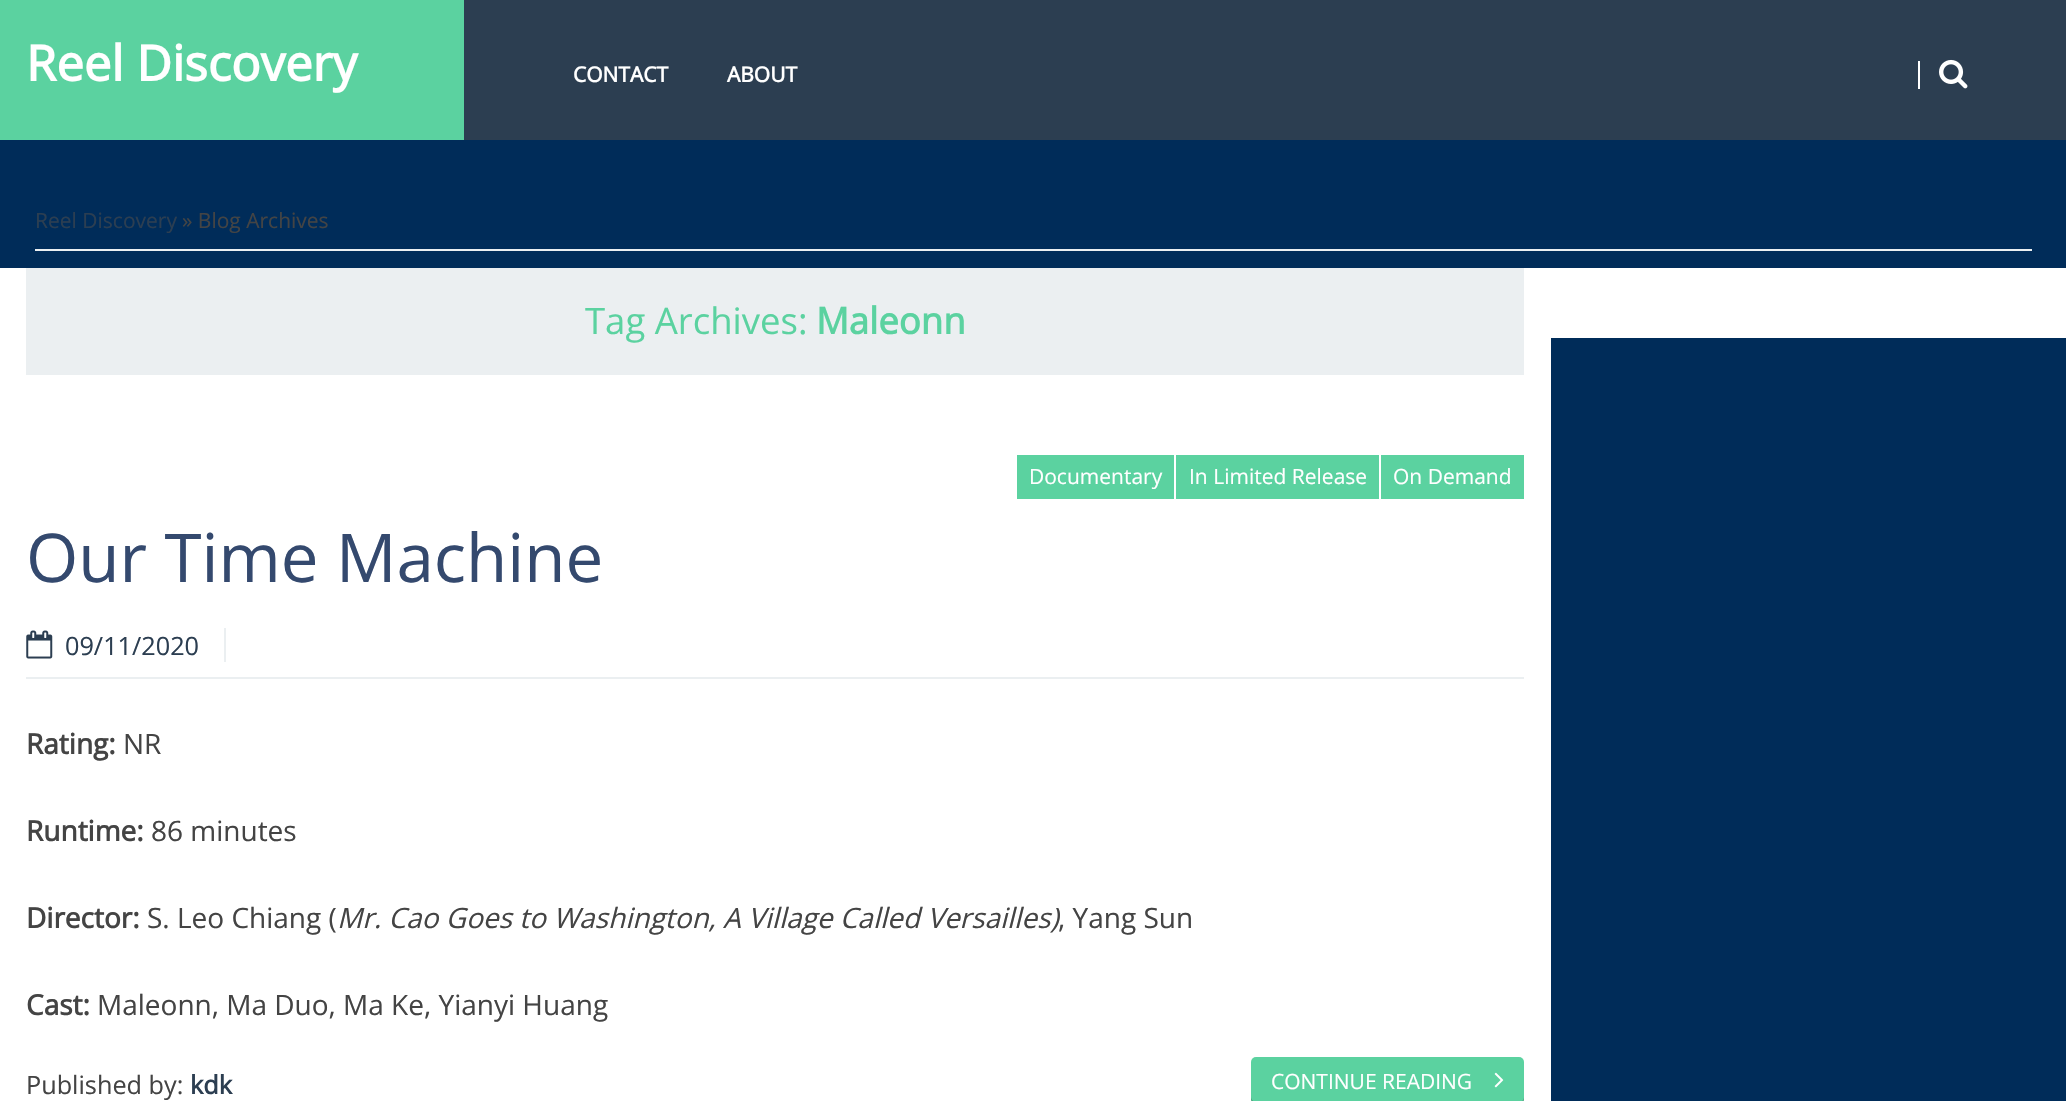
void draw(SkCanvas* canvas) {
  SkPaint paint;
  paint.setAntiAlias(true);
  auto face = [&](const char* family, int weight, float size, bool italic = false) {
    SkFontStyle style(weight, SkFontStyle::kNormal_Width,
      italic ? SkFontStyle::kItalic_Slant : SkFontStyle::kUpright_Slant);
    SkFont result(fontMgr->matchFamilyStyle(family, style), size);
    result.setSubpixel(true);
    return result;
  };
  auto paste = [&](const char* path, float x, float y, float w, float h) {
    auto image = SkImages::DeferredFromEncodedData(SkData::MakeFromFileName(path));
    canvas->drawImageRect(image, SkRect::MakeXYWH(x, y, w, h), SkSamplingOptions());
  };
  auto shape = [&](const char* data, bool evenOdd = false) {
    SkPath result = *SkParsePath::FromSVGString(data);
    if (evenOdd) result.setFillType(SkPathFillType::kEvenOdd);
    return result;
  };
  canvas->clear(0xff002c59);
  {
    const struct { float x, y, w, h; SkColor color; } items[] = {
      {464, 0, 1602, 140, 0xff2c3e51},
      {0, 0, 464, 140, 0xff5bd2a0},
      {1918, 61, 2, 28, 0xffffffff},
    };
    for (auto [x, y, w, h, color] : items) {
      paint.setColor(color);
      canvas->drawRect(SkRect::MakeXYWH(x, y, w, h), paint);
    }
  }
  paste("img/1.png", 1939, 59, 29, 30);
  {
    const struct { float x, y, w, h; SkColor color; } items[] = {
      {35, 249, 1997, 2, 0xffebeff1},
      {0, 268, 1551, 833, 0xffffffff},
      {26, 268, 1498, 107, 0xffebeff1},
      {1017, 455, 157, 44, 0xff5bd2a0},
      {1176, 455, 203, 44, 0xff5bd2a0},
      {1381, 455, 143, 44, 0xff5bd2a0},
      {26, 677, 1498, 2, 0xffebeff1},
      {224, 628, 2, 34, 0xffebeff1},
    };
    for (auto [x, y, w, h, color] : items) {
      paint.setColor(color);
      canvas->drawRect(SkRect::MakeXYWH(x, y, w, h), paint);
    }
  }
  paste("img/2.png", 26, 630, 27, 29);
  paint.setColor(0xff5bd2a0);
  canvas->drawRoundRect(SkRect::MakeXYWH(1251, 1057, 273, 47), 5, 5, paint);
  paint.setColor(0x40000000);
  canvas->drawPath(shape("M1251 1097V1099C1251 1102 1253 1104 1256 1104H1519C1522 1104 1524 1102 1524 1099V1097C1524 1100 1522 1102 1519 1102H1256C1254 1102 1251 1100 1251 1097Z"), paint);
  paste("img/3.png", 1494, 1072, 10, 16);
  paint.setColor(0xffffffff);
  canvas->drawRect(SkRect::MakeXYWH(1551, 268, 515, 70), paint);
  auto f0 = face("Open Sans", 700, 49);
  canvas->drawString("Reel Discovery", 26, 81, f0, paint);
  auto f1 = face("Open Sans", 700, 21);
  canvas->drawString("CONTACT", 573, 82, f1, paint);
  canvas->drawString("ABOUT", 727, 82, f1, paint);
  auto f2 = face("Open Sans", 400, 21);
  paint.setColor(0xff2c3e51);
  canvas->drawString("Reel Discovery", 35, 228, f2, paint);
  paint.setColor(0xff444444);
  canvas->drawString("» Blog Archives", 182, 228, f2, paint);
  auto f3 = face("Open Sans", 400, 36.5f);
  paint.setColor(0xff5bd2a0);
  canvas->drawString("Tag Archives:", 585, 334, f3, paint);
  auto f4 = face("Open Sans", 700, 36.5f);
  canvas->drawString("Maleonn", 816, 334, f4, paint);
  paint.setColor(0xffffffff);
  {
    const struct { const char* s; float x, y; } items[] = {
      {"Documentary", 1029, 484},
      {"In Limited Release", 1189, 484},
      {"On Demand", 1393, 484},
    };
    for (auto [s, x, y] : items) {
      canvas->drawString(s, x, y, f2, paint);
    }
  }
  auto f5 = face("Open Sans", 400, 67.25f);
  paint.setColor(0xff34496e);
  canvas->drawString("Our Time Machine", 26, 582, f5, paint);
  auto f6 = face("Open Sans", 400, 25.25f);
  paint.setColor(0xff2c3e51);
  canvas->drawString("09/11/2020", 65, 655, f6, paint);
  auto f7 = face("Open Sans", 700, 28);
  paint.setColor(0xff444444);
  canvas->drawString("Rating:", 26, 754, f7, paint);
  auto f8 = face("Open Sans", 400, 28);
  canvas->drawString("NR", 123, 754, f8, paint);
  canvas->drawString("Runtime:", 26, 841, f7, paint);
  canvas->drawString("86 minutes", 151, 841, f8, paint);
  canvas->drawString("Director:", 26, 928, f7, paint);
  canvas->drawString("S. Leo Chiang (", 147, 928, f8, paint);
  auto f9 = face("Open Sans", 400, 28, true);
  canvas->drawString("Mr. Cao Goes to Washington, A Village Called Versailles)", 337, 928, f9, paint);
  canvas->drawString(", Yang Sun", 1058, 928, f8, paint);
  canvas->drawString("Cast:", 26, 1015, f7, paint);
  canvas->drawString("Maleonn, Ma Duo, Ma Ke, Yianyi Huang", 97, 1015, f8, paint);
  canvas->drawString("Published by:", 26, 1094, f6, paint);
  auto f10 = face("Open Sans", 700, 25.25f);
  paint.setColor(0xff2c3e51);
  canvas->drawString("kdk", 190, 1094, f10, paint);
  paint.setColor(0xffffffff);
  canvas->drawString("CONTINUE READING", 1271, 1089, f2, paint);
}
